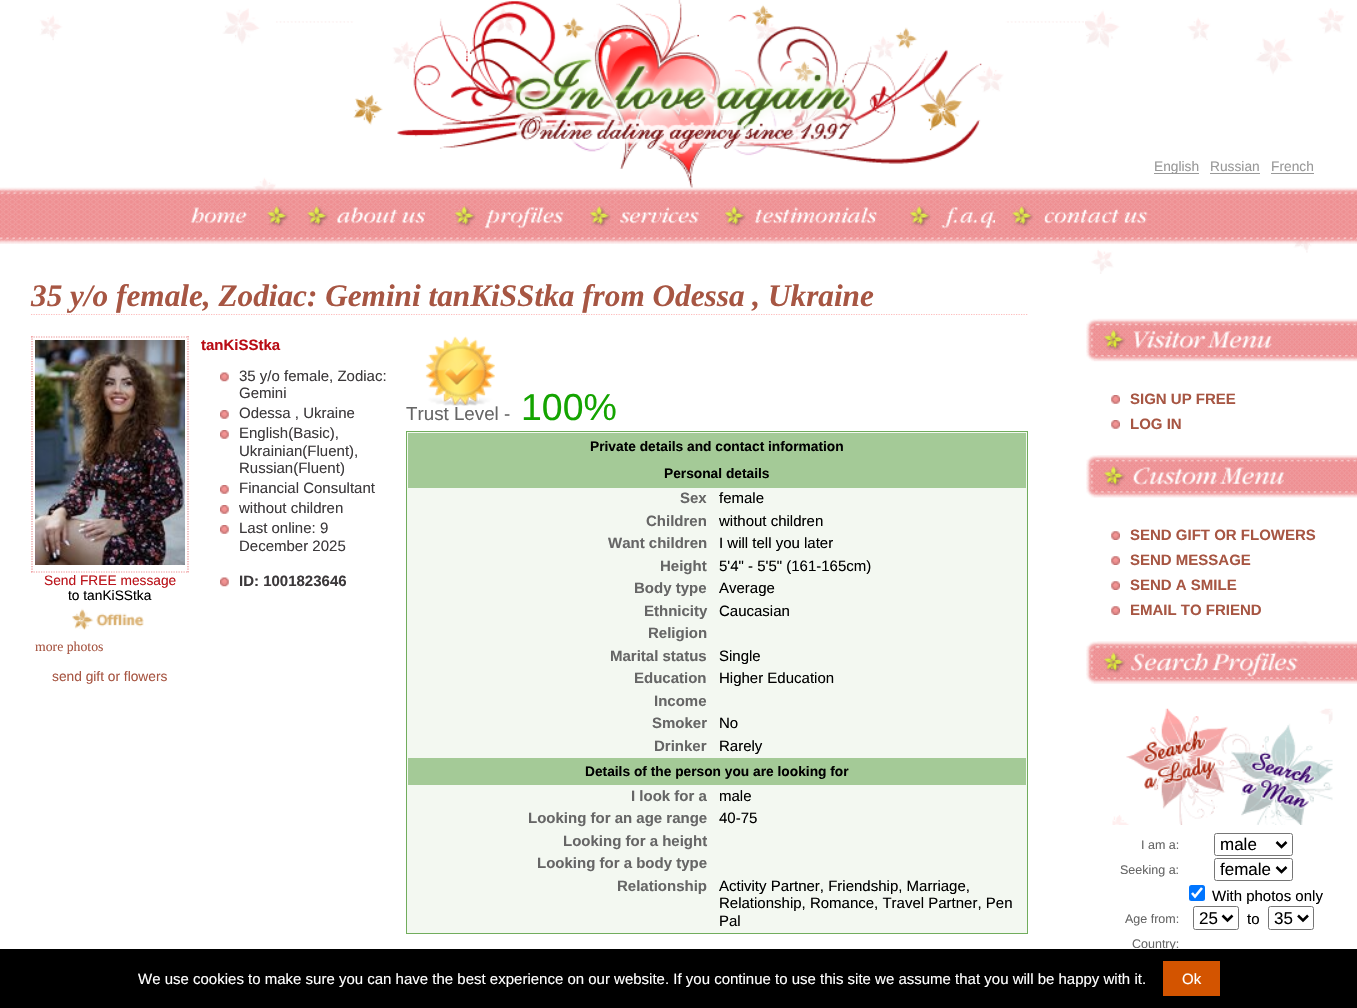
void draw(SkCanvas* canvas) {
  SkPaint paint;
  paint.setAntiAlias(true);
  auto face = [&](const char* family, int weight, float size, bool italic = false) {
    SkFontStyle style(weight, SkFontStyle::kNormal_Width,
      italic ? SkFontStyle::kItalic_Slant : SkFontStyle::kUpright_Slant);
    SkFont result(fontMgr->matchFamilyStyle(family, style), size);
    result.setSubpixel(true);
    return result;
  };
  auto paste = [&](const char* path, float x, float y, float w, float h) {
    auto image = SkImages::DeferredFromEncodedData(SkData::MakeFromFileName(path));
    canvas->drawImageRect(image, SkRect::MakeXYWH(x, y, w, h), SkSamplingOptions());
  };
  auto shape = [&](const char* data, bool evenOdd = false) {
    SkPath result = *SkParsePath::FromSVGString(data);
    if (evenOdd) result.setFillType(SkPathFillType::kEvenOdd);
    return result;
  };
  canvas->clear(0xffffffff);
  paste("img/1.png", 276, 21, 809, 2);
  paste("img/2.png", 2, 8, 274, 185);
  paste("img/3.png", 1085, 8, 272, 266);
  paste("img/4.png", 353, 0, 652, 188);
  {
    const struct { float x, y, w, h; SkColor color; } items[] = {
      {1154, 173, 45, 1, 0xff999999},
      {1210, 173, 50, 1, 0xff999999},
      {1271, 173, 43, 1, 0xff999999},
    };
    for (auto [x, y, w, h, color] : items) {
      paint.setColor(color);
      canvas->drawRect(SkRect::MakeXYWH(x, y, w, h), paint);
    }
  }
  paste("img/5.png", 0, 187, 1357, 57);
  paste("img/6.png", 191, 201, 58, 32);
  paste("img/7.png", 267, 206, 22, 22);
  paste("img/8.png", 307, 206, 22, 22);
  paste("img/9.png", 337, 201, 92, 32);
  paste("img/10.png", 455, 206, 21, 22);
  paste("img/11.png", 485, 201, 81, 32);
  paste("img/12.png", 590, 206, 21, 22);
  paste("img/13.png", 620, 201, 81, 32);
  paste("img/14.png", 725, 206, 21, 22);
  paste("img/15.png", 755, 201, 124, 32);
  paste("img/16.png", 910, 206, 22, 22);
  paste("img/17.png", 941, 201, 54, 32);
  paste("img/18.png", 1012, 206, 22, 22);
  paste("img/19.png", 1044, 201, 105, 32);
  paint.setStroke(true);
  paint.setStrokeWidth(1.2f);
  paint.setColor(0xfffebdbd);
  paint.setPathEffect(SkDashPathEffect::Make({{1.25f, 1.25f}}, 0));
  canvas->drawPath(shape("M31 314.5H1027.5"), paint);
  paint.setPathEffect(nullptr);
  paste("img/20.png", 220, 372, 9, 10);
  paste("img/21.png", 220, 410, 9, 9);
  paste("img/21.png", 220, 430, 9, 9);
  paste("img/21.png", 220, 485, 9, 9);
  paste("img/21.png", 220, 505, 9, 9);
  paste("img/21.png", 220, 525, 9, 9);
  paste("img/20.png", 220, 577, 9, 10);
  paint.setColor(0xffee8f92);
  paint.setPathEffect(SkDashPathEffect::Make({{1.25f, 1.25f}}, 0));
  canvas->drawPath(shape("M31 337H189"), paint);
  paint.setPathEffect(nullptr);
  paint.setPathEffect(SkDashPathEffect::Make({{1.25f, 1.25f}}, 0));
  canvas->drawPath(shape("M188 336V572.5"), paint);
  paint.setPathEffect(nullptr);
  paint.setPathEffect(SkDashPathEffect::Make({{1.25f, 1.25f}}, 0));
  canvas->drawPath(shape("M31 572H189"), paint);
  paint.setPathEffect(nullptr);
  paint.setPathEffect(SkDashPathEffect::Make({{1.25f, 1.25f}}, 0));
  canvas->drawPath(shape("M32 336V572.5"), paint);
  paint.setPathEffect(nullptr);
  paste("img/22.png", 35, 340, 150, 225);
  paste("img/23.png", 72, 608, 72, 22);
  paste("img/24.png", 425, 336, 70, 70);
  paint.setStroke(false);
  paint.setColor(0xfff3f8f1);
  canvas->drawRect(SkRect::MakeXYWH(406.5f, 431.5f, 621, 502), paint);
  paint.setStroke(true);
  paint.setStrokeWidth(1);
  paint.setColor(0xff71ad5c);
  canvas->drawRect(SkRect::MakeXYWH(406.5f, 431.5f, 621, 502), paint);
  paint.setStroke(false);
  paint.setColor(0xffa4ca97);
  canvas->drawRect(SkRect::MakeXYWH(408, 433, 618, 55), paint);
  canvas->drawRect(SkRect::MakeXYWH(408, 758, 618, 27), paint);
  paste("img/25.png", 1086, 318, 271, 44);
  paste("img/26.png", 1111, 395, 9, 9);
  paste("img/26.png", 1111, 420, 9, 9);
  paste("img/27.png", 1086, 455, 271, 43);
  paste("img/28.png", 1111, 531, 9, 9);
  paste("img/28.png", 1111, 556, 9, 9);
  paste("img/28.png", 1111, 581, 9, 9);
  paste("img/28.png", 1111, 606, 9, 9);
  paste("img/29.png", 1086, 641, 271, 43);
  paste("img/30.png", 1112, 708, 117, 117);
  paste("img/31.png", 1229, 708, 104, 117);
  paint.setStroke(true);
  paint.setColor(0xff767676);
  canvas->drawRoundRect(SkRect::MakeXYWH(1214.5f, 833.5f, 78, 22), 2, 2, paint);
  paint.setStrokeWidth(2.5f);
  paint.setColor(0xff000000);
  canvas->drawPath(shape("M1276.5 842L1281.5 847L1286.5 842"), paint);
  paint.setStrokeWidth(1);
  paint.setColor(0xff767676);
  canvas->drawRoundRect(SkRect::MakeXYWH(1214.5f, 858.5f, 78, 22), 2, 2, paint);
  paint.setStrokeWidth(2.5f);
  paint.setColor(0xff000000);
  canvas->drawPath(shape("M1276.5 867L1281.5 872L1286.5 867"), paint);
  paint.setStroke(false);
  paint.setColor(0xff0075ff);
  canvas->drawRoundRect(SkRect::MakeXYWH(1189, 885, 16, 16), 2.5f, 2.5f, paint);
  paint.setStroke(true);
  paint.setStrokeWidth(2.6f);
  paint.setColor(0xffffffff);
  canvas->drawPath(shape("M1192 893L1195 896.5L1202 888"), paint);
  paint.setStrokeWidth(1);
  paint.setColor(0xff767676);
  canvas->drawRoundRect(SkRect::MakeXYWH(1193.5f, 906.5f, 45, 23), 2, 2, paint);
  paint.setStrokeWidth(2.5f);
  paint.setColor(0xff000000);
  canvas->drawPath(shape("M1222.5 915.5L1227.5 920.5L1232.5 915.5"), paint);
  paint.setStrokeWidth(1);
  paint.setColor(0xff767676);
  canvas->drawRoundRect(SkRect::MakeXYWH(1268.5f, 906.5f, 45, 23), 2, 2, paint);
  paint.setStrokeWidth(2.5f);
  paint.setColor(0xff000000);
  canvas->drawPath(shape("M1298 915.5L1303 920.5L1308 915.5"), paint);
  auto f0 = face("Liberation Sans", 400, 13.75f);
  paint.setStroke(false);
  paint.setColor(0xff999999);
  {
    const struct { const char* s; float x, y; } items[] = {
      {"English", 1154, 171},
      {"Russian", 1210, 171},
      {"French", 1271, 171},
    };
    for (auto [s, x, y] : items) {
      canvas->drawString(s, x, y, f0, paint);
    }
  }
  auto f1 = face("Liberation Serif", 700, 31.25f, true);
  paint.setColor(0xffa75643);
  canvas->drawString("35 y/o female, Zodiac: Gemini tanKiSStka from Odessa , Ukraine", 31, 306, f1, paint);
  auto f2 = face("Liberation Sans", 700, 15);
  paint.setColor(0xffb90d15);
  canvas->drawString("tanKiSStka", 201, 350, f2, paint);
  auto f3 = face("Liberation Sans", 400, 15);
  paint.setColor(0xff3c393b);
  {
    const struct { const char* s; float x, y; } items[] = {
      {"35 y/o female, Zodiac:", 239, 381},
      {"Gemini", 239, 398},
      {"Odessa , Ukraine", 239, 418},
      {"English(Basic),", 239, 438},
      {"Ukrainian(Fluent),", 239, 456},
      {"Russian(Fluent)", 239, 473},
      {"Financial Consultant", 239, 493},
      {"without children", 239, 513},
      {"Last online: 9", 239, 533},
      {"December 2025", 239, 551},
    };
    for (auto [s, x, y] : items) {
      canvas->drawString(s, x, y, f3, paint);
    }
  }
  canvas->drawString("ID: 1001823646", 239, 586, f2, paint);
  paint.setColor(0xffbb141b);
  canvas->drawString("Send FREE message", 44, 585, f0, paint);
  paint.setColor(0xff000000);
  canvas->drawString("to tanKiSStka", 68, 600, f0, paint);
  auto f4 = face("Liberation Serif", 400, 13.75f);
  paint.setColor(0xffa75643);
  canvas->drawString("more photos", 35, 651, f4, paint);
  canvas->drawString("send gift or flowers", 52, 681, f0, paint);
  auto f5 = face("Liberation Sans", 400, 18.75f);
  paint.setColor(0xff666666);
  canvas->drawString("Trust Level -", 406, 420, f5, paint);
  auto f6 = face("Liberation Sans", 400, 37.5f);
  paint.setColor(0xff14a400);
  canvas->drawString("100%", 521, 420, f6, paint);
  auto f7 = face("Liberation Sans", 700, 13.75f);
  paint.setColor(0xff000000);
  canvas->drawString("Private details and contact information", 590, 451, f7, paint);
  canvas->drawString("Personal details", 664, 478, f7, paint);
  paint.setColor(0xff666666);
  canvas->drawString("Sex", 680, 503, f2, paint);
  paint.setColor(0xff000000);
  canvas->drawString("female", 719, 503, f3, paint);
  paint.setColor(0xff666666);
  canvas->drawString("Children", 646, 526, f2, paint);
  paint.setColor(0xff000000);
  canvas->drawString("without children", 719, 526, f3, paint);
  paint.setColor(0xff666666);
  canvas->drawString("Want children", 608, 548, f2, paint);
  paint.setColor(0xff000000);
  canvas->drawString("I will tell you later", 719, 548, f3, paint);
  paint.setColor(0xff666666);
  canvas->drawString("Height", 660, 571, f2, paint);
  paint.setColor(0xff000000);
  canvas->drawString("5'4\" - 5'5\" (161-165cm)", 719, 571, f3, paint);
  paint.setColor(0xff666666);
  canvas->drawString("Body type", 634, 593, f2, paint);
  paint.setColor(0xff000000);
  canvas->drawString("Average", 719, 593, f3, paint);
  paint.setColor(0xff666666);
  canvas->drawString("Ethnicity", 644, 616, f2, paint);
  paint.setColor(0xff000000);
  canvas->drawString("Caucasian", 719, 616, f3, paint);
  paint.setColor(0xff666666);
  canvas->drawString("Religion", 648, 638, f2, paint);
  canvas->drawString("Marital status", 610, 661, f2, paint);
  paint.setColor(0xff000000);
  canvas->drawString("Single", 719, 661, f3, paint);
  paint.setColor(0xff666666);
  canvas->drawString("Education", 634, 683, f2, paint);
  paint.setColor(0xff000000);
  canvas->drawString("Higher Education", 719, 683, f3, paint);
  paint.setColor(0xff666666);
  canvas->drawString("Income", 654, 706, f2, paint);
  canvas->drawString("Smoker", 652, 728, f2, paint);
  paint.setColor(0xff000000);
  canvas->drawString("No", 719, 728, f3, paint);
  paint.setColor(0xff666666);
  canvas->drawString("Drinker", 654, 751, f2, paint);
  paint.setColor(0xff000000);
  canvas->drawString("Rarely", 719, 751, f3, paint);
  canvas->drawString("Details of the person you are looking for", 585, 776, f7, paint);
  paint.setColor(0xff666666);
  canvas->drawString("I look for a", 631, 801, f2, paint);
  paint.setColor(0xff000000);
  canvas->drawString("male", 719, 801, f3, paint);
  paint.setColor(0xff666666);
  canvas->drawString("Looking for an age range", 528, 823, f2, paint);
  paint.setColor(0xff000000);
  canvas->drawString("40-75", 719, 823, f3, paint);
  paint.setColor(0xff666666);
  {
    const struct { const char* s; float x, y; } items[] = {
      {"Looking for a height", 563, 846},
      {"Looking for a body type", 537, 868},
      {"Relationship", 617, 891},
    };
    for (auto [s, x, y] : items) {
      canvas->drawString(s, x, y, f2, paint);
    }
  }
  paint.setColor(0xff000000);
  {
    const struct { const char* s; float x, y; } items[] = {
      {"Activity Partner, Friendship, Marriage,", 719, 891},
      {"Relationship, Romance, Travel Partner, Pen", 719, 908},
      {"Pal", 719, 926},
    };
    for (auto [s, x, y] : items) {
      canvas->drawString(s, x, y, f3, paint);
    }
  }
  paint.setColor(0xffa75643);
  {
    const struct { const char* s; float x, y; } items[] = {
      {"SIGN UP FREE", 1130, 404},
      {"LOG IN", 1130, 429},
      {"SEND GIFT OR FLOWERS", 1130, 540},
      {"SEND MESSAGE", 1130, 565},
      {"SEND A SMILE", 1130, 590},
      {"EMAIL TO FRIEND", 1130, 615},
    };
    for (auto [s, x, y] : items) {
      canvas->drawString(s, x, y, f2, paint);
    }
  }
  auto f8 = face("Liberation Sans", 400, 12.5f);
  paint.setColor(0xff666666);
  canvas->drawString("I am a:", 1141, 849, f8, paint);
  auto f9 = face("Liberation Sans", 400, 17);
  paint.setColor(0xff000000);
  canvas->drawString("male", 1220, 850, f9, paint);
  paint.setColor(0xff666666);
  canvas->drawString("Seeking a:", 1120, 874, f8, paint);
  paint.setColor(0xff000000);
  canvas->drawString("female", 1220, 875, f9, paint);
  canvas->drawString("With photos only", 1212, 901, f3, paint);
  paint.setColor(0xff666666);
  canvas->drawString("Age from:", 1125, 923, f8, paint);
  paint.setColor(0xff000000);
  canvas->drawString("25", 1199, 924, f9, paint);
  canvas->drawString("to", 1247, 924, f3, paint);
  canvas->drawString("35", 1274, 924, f9, paint);
  paint.setColor(0xff666666);
  canvas->drawString("Country:", 1132, 948, f8, paint);
  paint.setColor(0xff000000);
  canvas->drawRect(SkRect::MakeXYWH(0, 949, 1357, 59), paint);
  paint.setColor(0xffffffff);
  canvas->drawString("We use cookies to make sure you can have the best experience on our website. If you continue to use this site we assume that you will be happy with it.", 138, 984, f3, paint);
  paint.setColor(0xffd35400);
  canvas->drawRect(SkRect::MakeXYWH(1163, 961, 57, 35), paint);
  paint.setColor(0xffffffff);
  canvas->drawString("Ok", 1182, 984, f3, paint);
}
